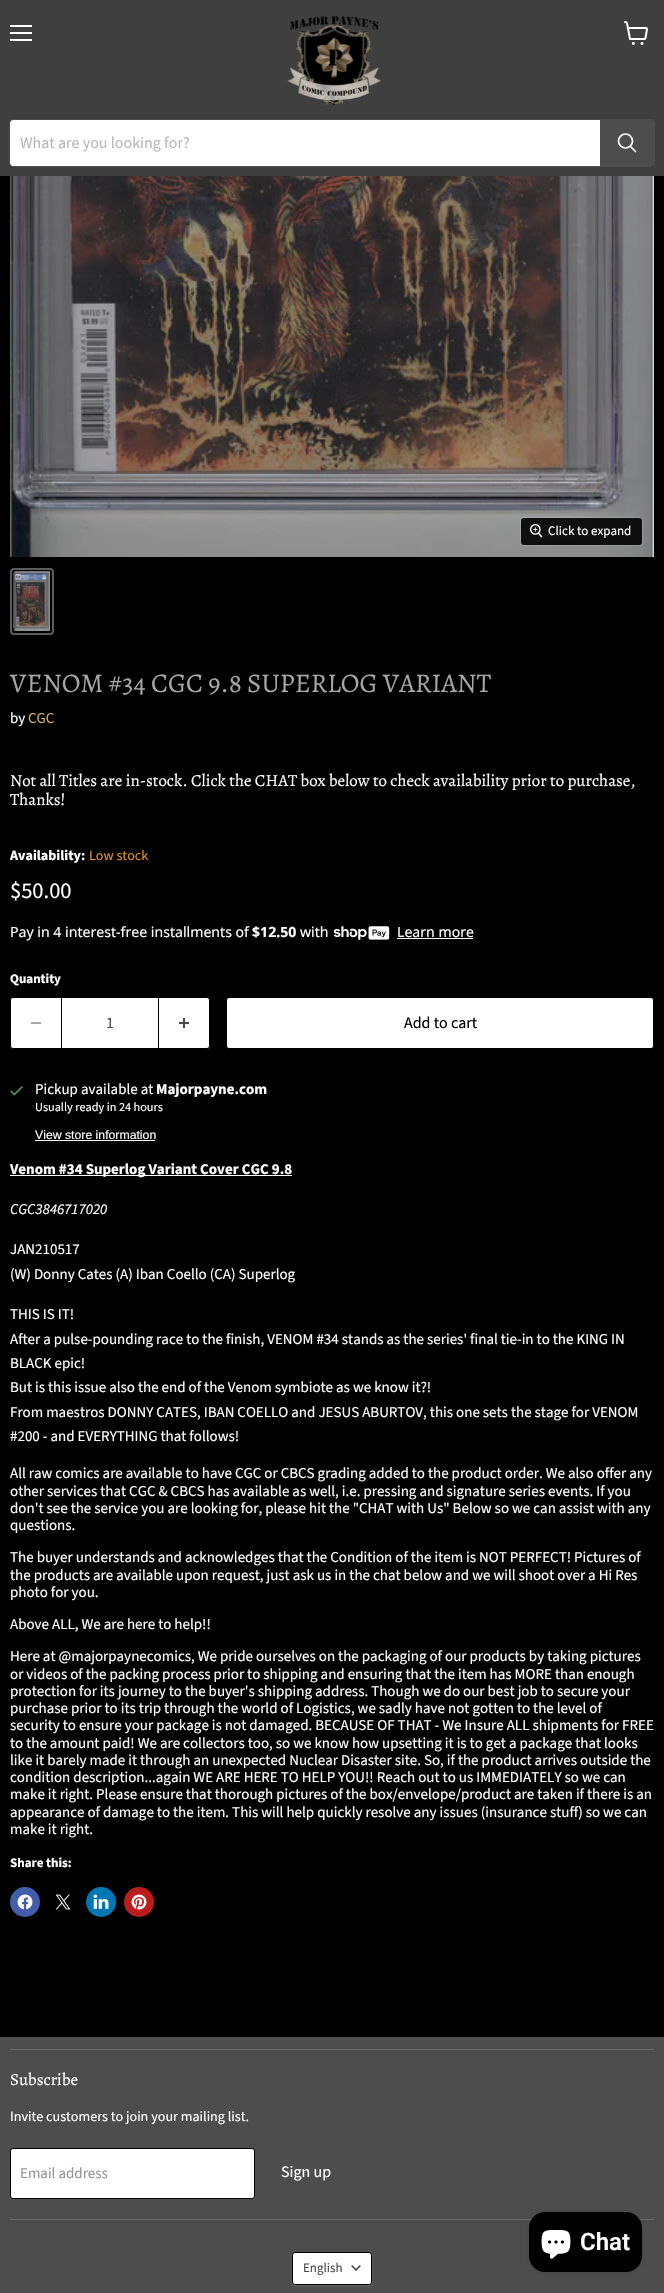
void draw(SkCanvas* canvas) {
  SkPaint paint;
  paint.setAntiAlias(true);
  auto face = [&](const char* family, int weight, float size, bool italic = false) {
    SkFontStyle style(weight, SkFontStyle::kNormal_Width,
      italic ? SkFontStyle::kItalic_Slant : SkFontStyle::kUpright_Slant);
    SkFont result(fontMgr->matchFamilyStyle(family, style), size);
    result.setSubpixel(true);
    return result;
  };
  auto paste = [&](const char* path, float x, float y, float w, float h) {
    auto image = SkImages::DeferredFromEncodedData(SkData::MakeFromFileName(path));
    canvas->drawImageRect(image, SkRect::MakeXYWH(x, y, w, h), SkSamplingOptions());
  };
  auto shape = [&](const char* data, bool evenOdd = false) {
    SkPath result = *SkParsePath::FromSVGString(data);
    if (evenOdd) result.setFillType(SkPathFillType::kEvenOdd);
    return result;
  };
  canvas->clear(0xff000000);
  {
    const struct { float x, y, w, h; SkColor color; } items[] = {
      {0, 0, 664, 176, 0xff3f3f3f},
      {10, 25, 22, 2, 0xffffffff},
      {10, 32, 22, 2, 0xffffffff},
      {10, 39, 22, 2, 0xffffffff},
    };
    for (auto [x, y, w, h, color] : items) {
      paint.setColor(color);
      canvas->drawRect(SkRect::MakeXYWH(x, y, w, h), paint);
    }
  }
  paste("img/1.png", 624, 21, 24, 24);
  paste("img/2.png", 287, 16, 94, 89);
  paint.setStroke(true);
  paint.setStrokeWidth(1);
  paint.setColor(0xff4c4c4c);
  canvas->drawRoundRect(SkRect::MakeXYWH(9.5f, 119.5f, 645, 47), 3.5f, 3.5f, paint);
  paint.setStroke(false);
  paint.setColor(0xffffffff);
  canvas->drawPath(shape("M13 120H600V166H13C11.5 166 10 164.5 10 163V123C10 121.5 11.5 120 13 120Z"), paint);
  paint.setColor(0xff4d4d4d);
  canvas->drawPath(shape("M600 120H651C652.5 120 654 121.5 654 123V163C654 164.5 652.5 166 651 166H600Z"), paint);
  paint.setStroke(true);
  paint.setStrokeWidth(1.7f);
  paint.setStrokeCap(SkPaint::kRound_Cap);
  paint.setColor(0xffffffff);
  canvas->drawPath(shape("M635.5 151.5L630.5 146.5"), paint);
  paint.setStrokeCap(SkPaint::kButt_Cap);
  canvas->drawCircle(625.5f, 141, 7, paint);
  paste("img/3.png", 10, 176, 644, 381);
  paint.setStrokeWidth(1);
  paint.setColor(0x26ffffff);
  canvas->drawRoundRect(SkRect::MakeXYWH(520.5f, 517.5f, 122, 28), 3.5f, 3.5f, paint);
  paint.setStroke(false);
  paint.setColor(0xe6000000);
  canvas->drawRoundRect(SkRect::MakeXYWH(521, 518, 121, 27), 3, 3, paint);
  paste("img/4.png", 530, 524, 13, 14);
  paint.setStroke(true);
  paint.setStrokeWidth(2);
  paint.setColor(0xff5c5c5c);
  canvas->drawRoundRect(SkRect::MakeXYWH(11, 569, 42, 65), 3, 3, paint);
  paste("img/5.png", 13, 571, 37, 60);
  paste("img/6.png", 333, 926, 57, 14);
  paint.setStroke(false);
  paint.setColor(0xffffffff);
  canvas->drawRect(SkRect::MakeXYWH(397, 938, 76, 1), paint);
  canvas->drawPath(shape("M13 997H61V1049H13C11.5 1049 10 1047.5 10 1046V1000C10 998.5 11.5 997 13 997Z"), paint);
  paint.setColor(0xff000000);
  canvas->drawPath(shape("M13 997H61V1049H13C11 1049 10 1048 10 1046V1000C10 998 11 997 13 997ZM13 998H61V1048H13C12 1048 11 1047 11 1046V1000C11 999 12 998 13 998Z", true), paint);
  paint.setColor(0xffa6a6a6);
  canvas->drawRect(SkRect::MakeXYWH(31, 1022, 10, 2), paint);
  paint.setColor(0xffffffff);
  canvas->drawRect(SkRect::MakeXYWH(62, 998, 96, 50), paint);
  canvas->drawPath(shape("M159 997H207C208.5 997 210 998.5 210 1000V1046C210 1047.5 208.5 1049 207 1049H159Z"), paint);
  paint.setColor(0xff000000);
  canvas->drawPath(shape("M159 997H207C209 997 210 998 210 1000V1046C210 1048 209 1049 207 1049H159ZM159 998H207C208 998 209 999 209 1000V1046C209 1047 208 1048 207 1048H159Z", true), paint);
  paste("img/7.png", 179, 1018, 10, 10);
  paint.setColor(0xffffffff);
  canvas->drawRoundRect(SkRect::MakeXYWH(226.5f, 997.5f, 427, 51), 2.5f, 2.5f, paint);
  paint.setStroke(true);
  paint.setStrokeWidth(1);
  paint.setColor(0xff000000);
  canvas->drawRoundRect(SkRect::MakeXYWH(226.5f, 997.5f, 427, 51), 2.5f, 2.5f, paint);
  paste("img/8.png", 10, 1086, 13, 10);
  paint.setStroke(false);
  paint.setColor(0xffffffff);
  canvas->drawRect(SkRect::MakeXYWH(35, 1140, 120, 1), paint);
  canvas->drawRect(SkRect::MakeXYWH(10, 1175, 282, 1), paint);
  paint.setColor(0xff425dab);
  canvas->drawCircle(25, 1902, 15, paint);
  paste("img/9.png", 17, 1894, 16, 16);
  paste("img/10.png", 55, 1894, 16, 16);
  paint.setColor(0xff0077b5);
  canvas->drawCircle(101, 1902, 15, paint);
  paste("img/11.png", 93, 1894, 16, 15);
  paint.setColor(0xffbd1c1c);
  canvas->drawCircle(139, 1902, 15, paint);
  paste("img/12.png", 131, 1894, 16, 16);
  {
    const struct { float x, y, w, h; SkColor color; } items[] = {
      {0, 2037, 664, 256, 0xff4d4d4d},
      {10, 2049, 644, 1, 0xff686868},
      {10, 2219, 644, 1, 0xff686868},
    };
    for (auto [x, y, w, h, color] : items) {
      paint.setColor(color);
      canvas->drawRect(SkRect::MakeXYWH(x, y, w, h), paint);
    }
  }
  paint.setColor(0xffffffff);
  canvas->drawRoundRect(SkRect::MakeXYWH(10.5f, 2148.5f, 244, 50), 2.5f, 2.5f, paint);
  paint.setStroke(true);
  paint.setColor(0xff000000);
  canvas->drawRoundRect(SkRect::MakeXYWH(10.5f, 2148.5f, 244, 50), 2.5f, 2.5f, paint);
  paint.setStroke(false);
  paint.setColor(0x26ffffff);
  paint.setMaskFilter(SkMaskFilter::MakeBlur(kNormal_SkBlurStyle, 1));
  canvas->drawRoundRect(SkRect::MakeXYWH(292, 2253, 80, 33), 3, 3, paint);
  paint.setMaskFilter(nullptr);
  paint.setColor(0xffffffff);
  canvas->drawRoundRect(SkRect::MakeXYWH(292.5f, 2252.5f, 79, 32), 2.5f, 2.5f, paint);
  paint.setStroke(true);
  paint.setColor(0xff000000);
  canvas->drawRoundRect(SkRect::MakeXYWH(292.5f, 2252.5f, 79, 32), 2.5f, 2.5f, paint);
  paste("img/13.png", 351, 2265, 10, 6);
  paint.setStroke(false);
  paint.setColor(0x26000000);
  paint.setMaskFilter(SkMaskFilter::MakeBlur(kNormal_SkBlurStyle, 2.5f));
  canvas->drawRoundRect(SkRect::MakeXYWH(529, 2212, 113, 60), 16, 16, paint);
  paint.setMaskFilter(nullptr);
  paint.setColor(0xff000000);
  canvas->drawRoundRect(SkRect::MakeXYWH(529, 2212, 113, 60), 16, 16, paint);
  paste("img/14.png", 541, 2230, 30, 29);
  auto f0 = face("Source Sans Pro", 400, 16);
  paint.setColor(0xffb8b8b8);
  canvas->drawString("What are you looking for?", 20, 148, f0, paint);
  auto f1 = face("Source Sans Pro", 400, 13);
  paint.setColor(0xffffffff);
  canvas->drawString("Click to expand", 548, 535, f1, paint);
  auto f2 = face("Alegreya", 400, 27);
  paint.setColor(0xffa6a6a6);
  canvas->drawString("VENOM #34 CGC 9.8 SUPERLOG VARIANT", 10, 692, f2, paint);
  auto f3 = face("Source Sans Pro", 400, 15);
  paint.setColor(0xffffffff);
  canvas->drawString("by", 10, 723, f3, paint);
  paint.setColor(0xffd2b069);
  canvas->drawString("CGC", 28, 723, f3, paint);
  auto f4 = face("Alegreya", 400, 16.9f);
  paint.setColor(0xffffffff);
  canvas->drawString("Not all Titles are in-stock. Click the CHAT box below to check availability prior to purchase,", 10, 786, f4, paint);
  canvas->drawString("Thanks!", 10, 805, f4, paint);
  auto f5 = face("Source Sans Pro", 700, 14.1f);
  canvas->drawString("Availability:", 10, 860, f5, paint);
  auto f6 = face("Source Sans Pro", 400, 14.1f);
  paint.setColor(0xffe99114);
  canvas->drawString("Low stock", 89, 860, f6, paint);
  auto f7 = face("Source Sans Pro", 400, 22.5f);
  paint.setColor(0xffffffff);
  canvas->drawString("$50.00", 10, 898, f7, paint);
  auto f8 = face("Noto Sans", 400, 14.1f);
  canvas->drawString("Pay in 4 interest-free installments of", 10, 937, f8, paint);
  auto f9 = face("Noto Sans", 700, 14.1f);
  canvas->drawString("$12.50", 252, 937, f9, paint);
  canvas->drawString("with", 300, 937, f8, paint);
  canvas->drawString("Learn more", 397, 937, f8, paint);
  auto f10 = face("Source Sans Pro", 700, 13);
  canvas->drawString("Quantity", 10, 983, f10, paint);
  paint.setColor(0xff4d4d4d);
  canvas->drawString("1", 106, 1028, f0, paint);
  paint.setColor(0xff000000);
  canvas->drawString("Add to cart", 404, 1028, f0, paint);
  paint.setColor(0xffffffff);
  canvas->drawString("Pickup available at", 35, 1094, f3, paint);
  auto f11 = face("Source Sans Pro", 700, 15);
  canvas->drawString("Majorpayne.com", 156, 1094, f11, paint);
  auto f12 = face("Source Sans Pro", 400, 12.25f);
  canvas->drawString("Usually ready in 24 hours", 35, 1111, f12, paint);
  auto f13 = face("Liberation Sans", 400, 12.25f);
  canvas->drawString("View store information", 35, 1139, f13, paint);
  canvas->drawString("Venom #34 Superlog Variant Cover CGC 9.8", 10, 1174, f11, paint);
  auto f14 = face("Source Sans Pro", 400, 15, true);
  canvas->drawString("CGC3846717020", 10, 1214, f14, paint);
  {
    const struct { const char* s; float x, y; } items[] = {
      {"JAN210517", 10, 1254},
      {"(W) Donny Cates (A) Iban Coello (CA) Superlog", 10, 1279},
      {"THIS IS IT!", 10, 1319},
      {"After a pulse-pounding race to the finish, VENOM #34 stands as the series' final tie-in to the KING IN", 10, 1344},
      {"BLACK epic!", 10, 1368},
      {"But is this issue also the end of the Venom symbiote as we know it?!", 10, 1392},
      {"From maestros DONNY CATES, IBAN COELLO and JESUS ABURTOV, this one sets the stage for VENOM", 10, 1417},
      {"#200 - and EVERYTHING that follows!", 10, 1441},
      {"All raw comics are available to have CGC or CBCS grading added to the product order. We also offer any", 10, 1478},
      {"other services that CGC & CBCS has available as well, i.e. pressing and signature series events. If you", 10, 1496},
      {"don't see the service you are looking for, please hit the \"CHAT with Us\" Below so we can assist with any", 10, 1513},
      {"questions.", 10, 1530},
      {"The buyer understands and acknowledges that the Condition of the item is NOT PERFECT! Pictures of", 10, 1562},
      {"the products are available upon request, just ask us in the chat below and we will shoot over a Hi Res", 10, 1580},
      {"photo for you.", 10, 1597},
      {"Above ALL, We are here to help!!", 10, 1629},
      {"Here at @majorpaynecomics, We pride ourselves on the packaging of our products by taking pictures", 10, 1661},
      {"or videos of the packing process prior to shipping and ensuring that the item has MORE than enough", 10, 1679},
      {"protection for its journey to the buyer's shipping address. Though we do our best job to secure your", 10, 1696},
      {"purchase prior to its trip through the world of Logistics, we sadly have not gotten to the level of", 10, 1713},
      {"security to ensure your package is not damaged. BECAUSE OF THAT - We Insure ALL shipments for FREE", 10, 1730},
      {"to the amount paid! We are collectors too, so we know how upsetting it is to get a package that looks", 10, 1748},
      {"like it barely made it through an unexpected Nuclear Disaster site. So, if the product arrives outside the", 10, 1765},
      {"condition description...again WE ARE HERE TO HELP YOU!! Reach out to us IMMEDIATELY so we can", 10, 1782},
      {"make it right. Please ensure that thorough pictures of the box/envelope/product are taken if there is an", 10, 1799},
      {"appearance of damage to the item. This will help quickly resolve any issues (insurance stuff) so we can", 10, 1817},
      {"make it right.", 10, 1834},
    };
    for (auto [s, x, y] : items) {
      canvas->drawString(s, x, y, f3, paint);
    }
  }
  canvas->drawString("Share this:", 10, 1867, f10, paint);
  canvas->drawString("Subscribe", 10, 2085, f4, paint);
  canvas->drawString("Invite customers to join your mailing list.", 10, 2121, f6, paint);
  paint.setColor(0xff949494);
  canvas->drawString("Email address", 20, 2178, f3, paint);
  paint.setColor(0xffffffff);
  canvas->drawString("Sign up", 281, 2177, f0, paint);
  paint.setColor(0xff4d4d4d);
  canvas->drawString("English", 303, 2272, f1, paint);
  auto f15 = face("Roboto", 600, 24);
  paint.setColor(0xffffffff);
  canvas->drawString("Chat", 580, 2250, f15, paint);
}
